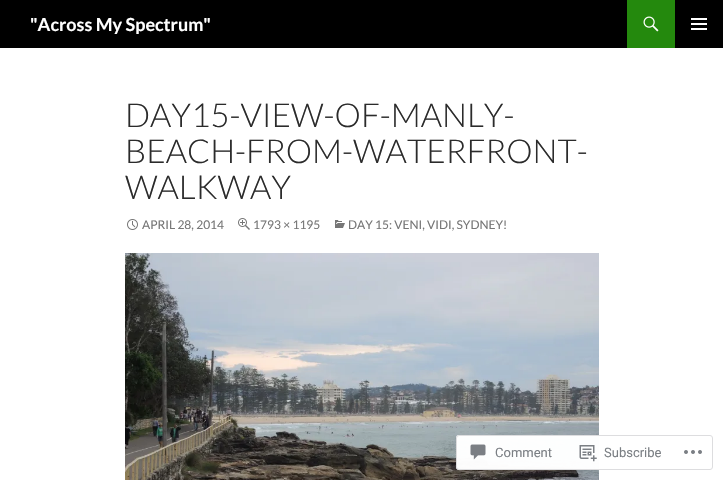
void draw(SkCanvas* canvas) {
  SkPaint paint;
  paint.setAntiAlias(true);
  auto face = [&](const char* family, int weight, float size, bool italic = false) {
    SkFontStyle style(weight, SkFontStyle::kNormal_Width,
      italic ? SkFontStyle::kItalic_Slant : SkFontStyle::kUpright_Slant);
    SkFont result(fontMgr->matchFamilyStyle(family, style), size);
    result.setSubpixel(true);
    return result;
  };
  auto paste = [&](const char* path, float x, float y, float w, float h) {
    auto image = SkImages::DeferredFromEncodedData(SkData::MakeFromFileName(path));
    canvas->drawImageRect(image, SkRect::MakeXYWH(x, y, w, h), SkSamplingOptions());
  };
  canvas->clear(0xffffffff);
  paint.setColor(0xff000000);
  canvas->drawRect(SkRect::MakeXYWH(0, 0, 723, 48), paint);
  paint.setColor(0xff24890d);
  canvas->drawRect(SkRect::MakeXYWH(627, 0, 48, 48), paint);
  paste("img/1.png", 643, 16, 16, 16);
  paste("img/2.png", 691, 18, 16, 12);
  paste("img/3.png", 127, 219, 11, 11);
  paste("img/4.png", 238, 218, 12, 12);
  paste("img/5.png", 335, 220, 10, 8);
  paste("img/6.png", 125, 253, 474, 227);
  paint.setColor(0xfaffffff);
  canvas->drawRoundRect(SkRect::MakeXYWH(456, 435, 257, 35), 3, 3, paint);
  paint.setStroke(true);
  paint.setStrokeWidth(1);
  paint.setColor(0xfadcdcde);
  canvas->drawRoundRect(SkRect::MakeXYWH(456.5f, 435.5f, 256, 34), 2.5f, 2.5f, paint);
  paste("img/7.png", 470, 444, 16, 16);
  paste("img/8.png", 579, 445, 18, 17);
  paste("img/9.png", 684, 450, 18, 4);
  auto f0 = face("Lato", 700, 18);
  paint.setStroke(false);
  paint.setColor(0xffffffff);
  canvas->drawString("\"Across My Spectrum\"", 30, 31, f0, paint);
  auto f1 = face("Lato", 300, 33);
  paint.setColor(0xff2b2b2b);
  {
    const struct { const char* s; float x, y; } items[] = {
      {"DAY15-VIEW-OF-MANLY-", 125, 127},
      {"BEACH-FROM-WATERFRONT-", 125, 163},
      {"WALKWAY", 125, 199},
    };
    for (auto [s, x, y] : items) {
      canvas->drawString(s, x, y, f1, paint);
    }
  }
  auto f2 = face("Lato", 400, 12);
  paint.setColor(0xff767676);
  {
    const struct { const char* s; float x, y; } items[] = {
      {"APRIL 28, 2014", 142, 229},
      {"1793 × 1195", 253, 229},
      {"DAY 15: VENI, VIDI, SYDNEY!", 348, 229},
    };
    for (auto [s, x, y] : items) {
      canvas->drawString(s, x, y, f2, paint);
    }
  }
  auto f3 = face("Roboto", 400, 13);
  paint.setColor(0xff7b7f84);
  canvas->drawString("Comment", 495, 457, f3, paint);
  canvas->drawString("Subscribe", 604, 457, f3, paint);
}
